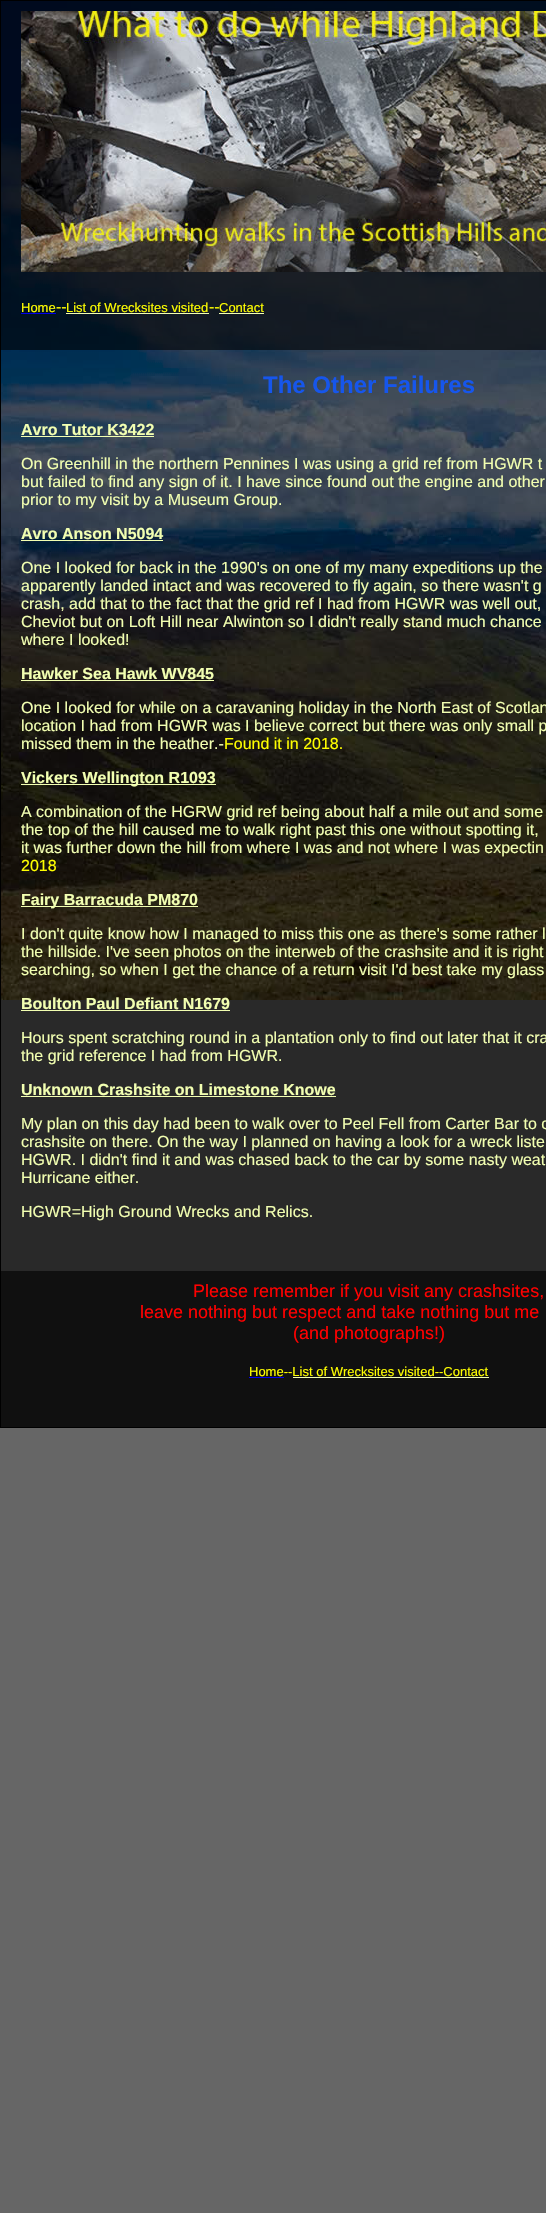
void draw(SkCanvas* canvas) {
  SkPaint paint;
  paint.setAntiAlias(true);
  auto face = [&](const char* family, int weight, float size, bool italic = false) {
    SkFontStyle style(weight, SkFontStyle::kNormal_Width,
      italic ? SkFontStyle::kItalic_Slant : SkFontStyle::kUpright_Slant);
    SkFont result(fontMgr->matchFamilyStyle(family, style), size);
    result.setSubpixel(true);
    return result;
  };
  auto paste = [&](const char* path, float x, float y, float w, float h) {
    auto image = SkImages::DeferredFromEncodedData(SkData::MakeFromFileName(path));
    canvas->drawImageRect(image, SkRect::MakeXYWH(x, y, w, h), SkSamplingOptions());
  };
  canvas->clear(0xff666666);
  paint.setColor(0xff292929);
  canvas->drawRect(SkRect::MakeXYWH(1, 1000, 545, 271), paint);
  paste("img/1.png", 1, 1, 545, 999);
  paint.setStroke(true);
  paint.setStrokeWidth(1);
  paint.setColor(0xff000000);
  canvas->drawRect(SkRect::MakeXYWH(0.5f, 0.5f, 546, 1427), paint);
  paint.setStroke(false);
  paint.setColor(0x99000000);
  canvas->drawRect(SkRect::MakeXYWH(1, 1, 545, 349), paint);
  paste("img/2.png", 21, 11, 525, 261);
  {
    const struct { float x, y, w, h; SkColor color; } items[] = {
      {21, 313, 35, 1, 0xff0000ee},
      {66, 313, 143, 1, 0xfff2ffb1},
      {219, 313, 45, 1, 0xfff2ffb1},
      {21, 436, 133, 1, 0xfff2ffb1},
      {21, 540, 142, 1, 0xfff2ffb1},
      {21, 680, 193, 1, 0xfff2ffb1},
      {21, 784, 195, 1, 0xfff2ffb1},
      {21, 906, 177, 1, 0xfff2ffb1},
      {21, 1010, 209, 1, 0xfff2ffb1},
      {21, 1096, 315, 1, 0xfff2ffb1},
      {1, 1271, 545, 156, 0xff101010},
      {249, 1377, 35, 1, 0xff0000ee},
      {293, 1377, 196, 1, 0xfff2ffb1},
    };
    for (auto [x, y, w, h, color] : items) {
      paint.setColor(color);
      canvas->drawRect(SkRect::MakeXYWH(x, y, w, h), paint);
    }
  }
  auto f0 = face("Liberation Sans", 400, 13);
  paint.setColor(0xffffff00);
  canvas->drawString("Home", 21, 312, f0, paint);
  auto f1 = face("Liberation Sans", 400, 16);
  canvas->drawString("--", 56, 312, f1, paint);
  canvas->drawString("List of Wrecksites visited", 66, 312, f0, paint);
  canvas->drawString("--", 209, 312, f1, paint);
  canvas->drawString("Contact", 219, 312, f0, paint);
  auto f2 = face("Liberation Sans", 700, 24);
  paint.setColor(0xff1656ec);
  canvas->drawString("The Other Failures", 263, 393, f2, paint);
  auto f3 = face("Liberation Sans", 700, 16);
  paint.setColor(0xfff2ffb1);
  canvas->drawString("Avro Tutor K3422", 21, 435, f3, paint);
  {
    const struct { const char* s; float x, y; } items[] = {
      {"On Greenhill in the northern Pennines I was using a grid ref from HGWR t", 21, 469},
      {"but failed to find any sign of it. I have since found out the engine and other", 21, 487},
      {"prior to my visit by a Museum Group.", 21, 505},
    };
    for (auto [s, x, y] : items) {
      canvas->drawString(s, x, y, f1, paint);
    }
  }
  canvas->drawString("Avro Anson N5094", 21, 539, f3, paint);
  {
    const struct { const char* s; float x, y; } items[] = {
      {"One I looked for back in the 1990's on one of my many expeditions up the", 21, 573},
      {"apparently landed intact and was recovered to fly again, so there wasn't g", 21, 591},
      {"crash, add that to the fact that the grid ref I had from HGWR was well out,", 21, 609},
      {"Cheviot but on Loft Hill near Alwinton so I didn't really stand much chance", 21, 627},
      {"where I looked!", 21, 645},
    };
    for (auto [s, x, y] : items) {
      canvas->drawString(s, x, y, f1, paint);
    }
  }
  canvas->drawString("Hawker Sea Hawk WV845", 21, 679, f3, paint);
  {
    const struct { const char* s; float x, y; } items[] = {
      {"One I looked for while on a caravaning holiday in the North East of Scotlan", 21, 713},
      {"location I had from HGWR was I believe correct but there was only small p", 21, 731},
      {"missed them in the heather.-", 21, 749},
    };
    for (auto [s, x, y] : items) {
      canvas->drawString(s, x, y, f1, paint);
    }
  }
  paint.setColor(0xffffff00);
  canvas->drawString("Found it in 2018.", 224, 749, f1, paint);
  paint.setColor(0xfff2ffb1);
  canvas->drawString("Vickers Wellington R1093", 21, 783, f3, paint);
  {
    const struct { const char* s; float x, y; } items[] = {
      {"A combination of the HGRW grid ref being about half a mile out and some", 21, 817},
      {"the top of the hill caused me to walk right past this one without spotting it,", 21, 835},
      {"it was further down the hill from where I was and not where I was expectin", 21, 853},
    };
    for (auto [s, x, y] : items) {
      canvas->drawString(s, x, y, f1, paint);
    }
  }
  paint.setColor(0xffffff00);
  canvas->drawString("2018", 21, 871, f1, paint);
  paint.setColor(0xfff2ffb1);
  canvas->drawString("Fairy Barracuda PM870", 21, 905, f3, paint);
  {
    const struct { const char* s; float x, y; } items[] = {
      {"I don't quite know how I managed to miss this one as there's some rather l", 21, 939},
      {"the hillside. I've seen photos on the interweb of the crashsite and it is right", 21, 957},
      {"searching, so when I get the chance of a return visit I'd best take my glass", 21, 975},
    };
    for (auto [s, x, y] : items) {
      canvas->drawString(s, x, y, f1, paint);
    }
  }
  canvas->drawString("Boulton Paul Defiant N1679", 21, 1009, f3, paint);
  canvas->drawString("Hours spent scratching round in a plantation only to find out later that it cra", 21, 1043, f1, paint);
  canvas->drawString("the grid reference I had from HGWR.", 21, 1061, f1, paint);
  canvas->drawString("Unknown Crashsite on Limestone Knowe", 21, 1095, f3, paint);
  {
    const struct { const char* s; float x, y; } items[] = {
      {"My plan on this day had been to walk over to Peel Fell from Carter Bar to c", 21, 1129},
      {"crashsite on there. On the way I planned on having a look for a wreck liste", 21, 1147},
      {"HGWR. I didn't find it and was chased back to the car by some nasty weat", 21, 1165},
      {"Hurricane either.", 21, 1183},
      {"HGWR=High Ground Wrecks and Relics.", 21, 1217},
    };
    for (auto [s, x, y] : items) {
      canvas->drawString(s, x, y, f1, paint);
    }
  }
  auto f4 = face("Liberation Sans", 400, 18);
  paint.setColor(0xffff0000);
  {
    const struct { const char* s; float x, y; } items[] = {
      {"Please remember if you visit any crashsites,", 193, 1297},
      {"leave nothing but respect and take nothing but me", 140, 1318},
      {"(and photographs!)", 293, 1339},
    };
    for (auto [s, x, y] : items) {
      canvas->drawString(s, x, y, f4, paint);
    }
  }
  paint.setColor(0xffffff00);
  canvas->drawString("Home--List of Wrecksites visited--Contact", 249, 1376, f0, paint);
}
